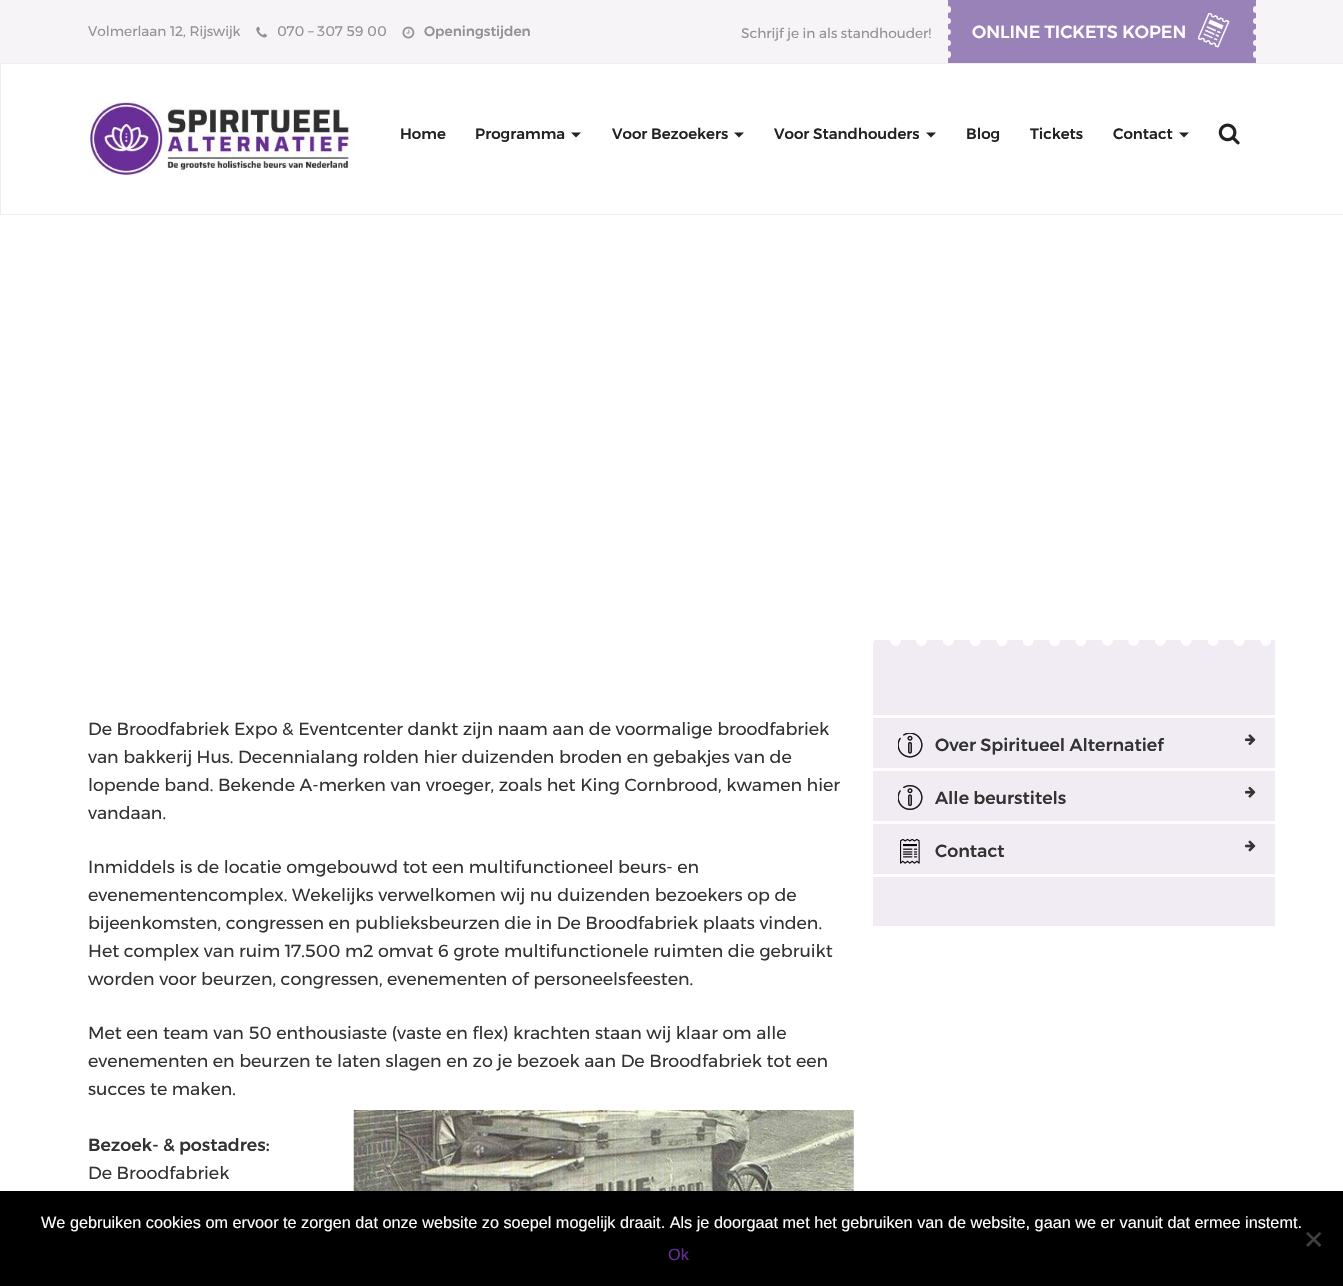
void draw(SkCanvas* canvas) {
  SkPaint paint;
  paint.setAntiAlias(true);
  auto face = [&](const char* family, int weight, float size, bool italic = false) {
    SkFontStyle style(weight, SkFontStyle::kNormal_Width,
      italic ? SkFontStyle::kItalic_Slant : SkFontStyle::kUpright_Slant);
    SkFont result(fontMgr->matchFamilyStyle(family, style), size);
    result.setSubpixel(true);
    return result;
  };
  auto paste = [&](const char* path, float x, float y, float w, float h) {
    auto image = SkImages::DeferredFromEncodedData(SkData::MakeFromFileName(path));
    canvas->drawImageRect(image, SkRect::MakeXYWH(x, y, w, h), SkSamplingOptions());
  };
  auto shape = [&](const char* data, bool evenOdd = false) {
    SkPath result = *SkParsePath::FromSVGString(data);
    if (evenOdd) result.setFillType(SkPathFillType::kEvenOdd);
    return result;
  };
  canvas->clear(0xffffffff);
  paint.setColor(0xfff6f4f6);
  canvas->drawRect(SkRect::MakeXYWH(0, 0, 1343, 63), paint);
  paste("img/1.png", 256, 26, 11, 12);
  paste("img/2.png", 402, 26, 13, 13);
  paint.setColor(0xff9982b8);
  canvas->drawRect(SkRect::MakeXYWH(948, 0, 308, 63), paint);
  paint.setColor(0xfff6f4f6);
  canvas->drawRoundRect(SkRect::MakeXYWH(945, 51, 6, 7), 3, 3, paint);
  canvas->drawCircle(948, 43, 3, paint);
  canvas->drawCircle(948, 32, 3, paint);
  canvas->drawCircle(948, 21, 3, paint);
  canvas->drawRoundRect(SkRect::MakeXYWH(945, 6, 6, 7), 3, 3, paint);
  paste("img/3.png", 1198, 13, 32, 35);
  canvas->drawRoundRect(SkRect::MakeXYWH(1253, 51, 6, 7), 3, 3, paint);
  canvas->drawCircle(1256, 43, 3, paint);
  canvas->drawCircle(1256, 32, 3, paint);
  canvas->drawCircle(1256, 21, 3, paint);
  canvas->drawRoundRect(SkRect::MakeXYWH(1253, 6, 6, 7), 3, 3, paint);
  paint.setStroke(true);
  paint.setStrokeWidth(1);
  paint.setColor(0xffeeeeee);
  canvas->drawRect(SkRect::MakeXYWH(0.5f, 63.5f, 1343, 151), paint);
  paste("img/4.png", 89, 101, 265, 75);
  paint.setStroke(false);
  paint.setColor(0xff222222);
  canvas->drawPath(shape("M571 132.5H581L576 137.5Z"), paint);
  canvas->drawPath(shape("M734 132.5H744L739 137.5Z"), paint);
  canvas->drawPath(shape("M926 132.5H936L931 137.5Z"), paint);
  canvas->drawPath(shape("M1179 132.5H1189L1184 137.5Z"), paint);
  paste("img/5.png", 1218, 123, 22, 22);
  paint.setColor(0xfff1ebf3);
  canvas->drawRect(SkRect::MakeXYWH(873, 640, 402, 286), paint);
  paste("img/6.png", 873, 640, 398, 6);
  paste("img/7.png", 353, 1110, 501, 81);
  paint.setColor(0xffffffff);
  canvas->drawRect(SkRect::MakeXYWH(873, 715, 402, 3), paint);
  canvas->drawRect(SkRect::MakeXYWH(873, 768, 402, 3), paint);
  paste("img/8.png", 898, 733, 25, 25);
  paste("img/9.png", 1245, 734, 11, 12);
  canvas->drawRect(SkRect::MakeXYWH(873, 821, 402, 3), paint);
  paste("img/10.png", 898, 785, 25, 25);
  paste("img/11.png", 1245, 786, 11, 12);
  canvas->drawRect(SkRect::MakeXYWH(873, 874, 402, 3), paint);
  paste("img/12.png", 900, 839, 20, 25);
  paste("img/13.png", 1245, 840, 11, 12);
  paint.setColor(0xff000000);
  canvas->drawRect(SkRect::MakeXYWH(0, 1191, 1343, 95), paint);
  paint.setColor(0xff404040);
  canvas->drawPath(shape("M1319.5 1232L1321.5 1233.5L1308 1247L1306 1245Z"), paint);
  canvas->drawPath(shape("M1306 1233.5L1308 1232L1321.5 1245L1319.5 1247Z"), paint);
  auto f0 = face("Montserrat", 400, 13.75f);
  paint.setColor(0xff929292);
  canvas->drawString("Volmerlaan 12, Rijswijk", 88, 36, f0, paint);
  canvas->drawString("070 – 307 59 00", 277, 36, f0, paint);
  auto f1 = face("Montserrat", 500, 13.75f);
  canvas->drawString("Openingstijden", 424, 36, f1, paint);
  canvas->drawString("Schrijf je in als standhouder!", 741, 38, f0, paint);
  auto f2 = face("Montserrat", 500, 17.5f);
  paint.setColor(0xffffffff);
  canvas->drawString("ONLINE TICKETS KOPEN", 972, 38, f2, paint);
  auto f3 = face("Montserrat", 500, 15);
  paint.setColor(0xff222222);
  {
    const struct { const char* s; float x, y; } items[] = {
      {"Home", 400, 139},
      {"Programma", 475, 139},
      {"Voor Bezoekers", 612, 139},
      {"Voor Standhouders", 774, 139},
      {"Blog", 966, 139},
      {"Tickets", 1030, 139},
      {"Contact", 1113, 139},
    };
    for (auto [s, x, y] : items) {
      canvas->drawString(s, x, y, f3, paint);
    }
  }
  auto f4 = face("Montserrat", 400, 17.5f);
  paint.setColor(0xff333333);
  {
    const struct { const char* s; float x, y; } items[] = {
      {"De Broodfabriek Expo & Eventcenter dankt zijn naam aan de voormalige broodfabriek", 88, 735},
      {"van bakkerij Hus. Decennialang rolden hier duizenden broden en gebakjes van de", 88, 763},
      {"lopende band. Bekende A-merken van vroeger, zoals het King Cornbrood, kwamen hier", 88, 791},
      {"vandaan.", 88, 819},
      {"Inmiddels is de locatie omgebouwd tot een multifunctioneel beurs- en", 88, 873},
      {"evenementencomplex. Wekelijks verwelkomen wij nu duizenden bezoekers op de", 88, 901},
      {"bijeenkomsten, congressen en publieksbeurzen die in De Broodfabriek plaats vinden.", 88, 929},
      {"Het complex van ruim 17.500 m2 omvat 6 grote multifunctionele ruimten die gebruikt", 88, 957},
      {"worden voor beurzen, congressen, evenementen of personeelsfeesten.", 88, 985},
      {"Met een team van 50 enthousiaste (vaste en flex) krachten staan wij klaar om alle", 88, 1039},
      {"evenementen en beurzen te laten slagen en zo je bezoek aan De Broodfabriek tot een", 88, 1067},
      {"succes te maken.", 88, 1095},
    };
    for (auto [s, x, y] : items) {
      canvas->drawString(s, x, y, f4, paint);
    }
  }
  canvas->drawString("Bezoek- & postadres:", 88, 1151, f2, paint);
  canvas->drawString("De Broodfabriek", 88, 1179, f4, paint);
  {
    const struct { const char* s; float x, y; } items[] = {
      {"Over Spiritueel Alternatief", 935, 751},
      {"Alle beurstitels", 935, 804},
      {"Contact", 935, 857},
    };
    for (auto [s, x, y] : items) {
      canvas->drawString(s, x, y, f2, paint);
    }
  }
  auto f5 = face("Liberation Sans", 400, 16.25f);
  paint.setColor(0xffffffff);
  canvas->drawString("We gebruiken cookies om ervoor te zorgen dat onze website zo soepel mogelijk draait. Als je doorgaat met het gebruiken van de website, gaan we er vanuit dat ermee instemt.", 41, 1228, f5, paint);
  paint.setColor(0xff692e98);
  canvas->drawString("Ok", 668, 1260, f5, paint);
}
